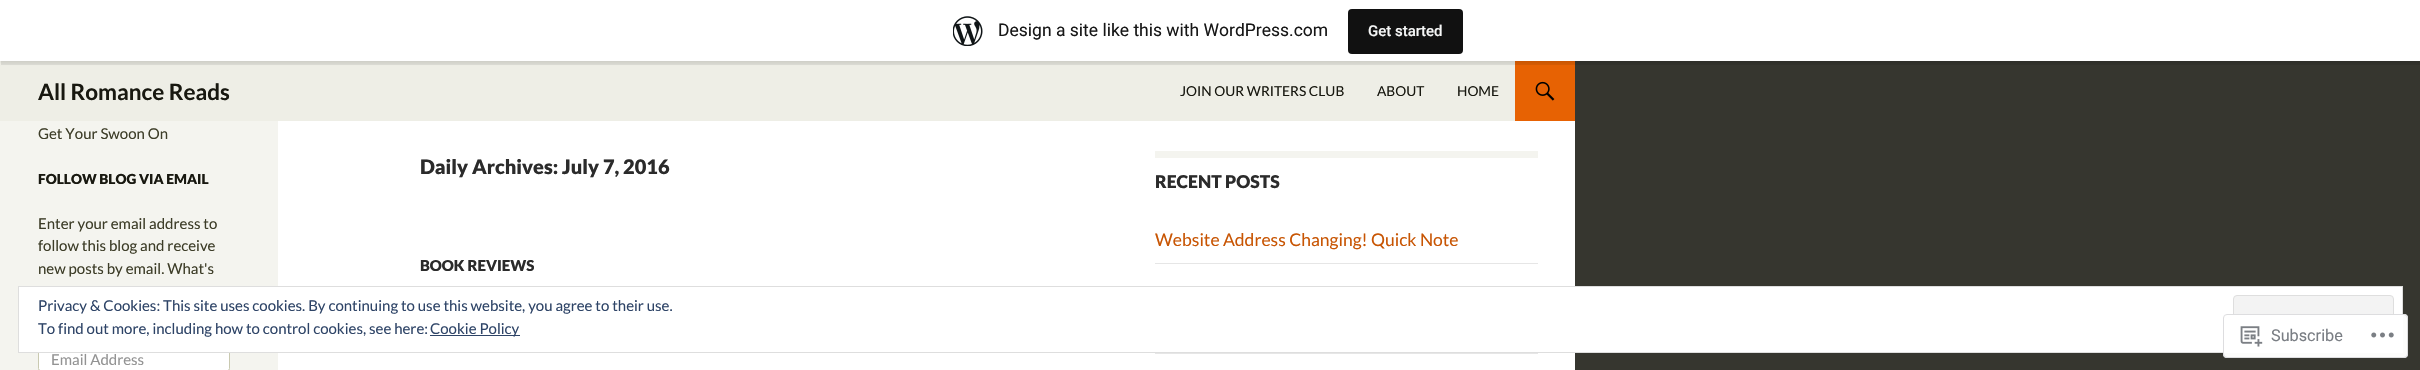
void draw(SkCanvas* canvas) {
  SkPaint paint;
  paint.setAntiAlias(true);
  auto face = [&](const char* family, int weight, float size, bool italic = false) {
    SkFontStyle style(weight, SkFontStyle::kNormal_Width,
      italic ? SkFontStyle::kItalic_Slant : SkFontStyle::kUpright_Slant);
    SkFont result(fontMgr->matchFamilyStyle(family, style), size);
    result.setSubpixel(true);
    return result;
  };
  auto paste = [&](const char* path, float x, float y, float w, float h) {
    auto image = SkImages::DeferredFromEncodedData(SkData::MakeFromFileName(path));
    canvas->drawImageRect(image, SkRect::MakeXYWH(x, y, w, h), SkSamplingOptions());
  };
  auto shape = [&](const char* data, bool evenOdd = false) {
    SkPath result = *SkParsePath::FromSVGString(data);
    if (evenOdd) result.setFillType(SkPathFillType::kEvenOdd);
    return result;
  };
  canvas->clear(0xff36362f);
  paint.setColor(0xffeeeee6);
  canvas->drawRect(SkRect::MakeXYWH(0, 61, 1515, 60), paint);
  paint.setColor(0xffe76203);
  canvas->drawRect(SkRect::MakeXYWH(1515, 61, 60, 60), paint);
  paint.setColor(0x0d000000);
  paint.setMaskFilter(SkMaskFilter::MakeBlur(kNormal_SkBlurStyle, 1));
  canvas->drawRect(SkRect::MakeXYWH(0, 1, 2420, 62), paint);
  paint.setMaskFilter(nullptr);
  paint.setColor(0x14000000);
  canvas->drawPath(shape("M1 61V65H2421V4H2420V61Z"), paint);
  paint.setColor(0xffffffff);
  canvas->drawRect(SkRect::MakeXYWH(0, 0, 2420, 61), paint);
  paste("img/1.png", 953, 16, 30, 30);
  paint.setColor(0xff111111);
  canvas->drawRoundRect(SkRect::MakeXYWH(1348, 9, 115, 45), 4, 4, paint);
  paint.setColor(0xffffffff);
  canvas->drawRect(SkRect::MakeXYWH(278, 121, 1297, 249), paint);
  paste("img/2.png", 1535, 81, 20, 20);
  paint.setColor(0xfff4f4ef);
  canvas->drawRect(SkRect::MakeXYWH(0, 121, 278, 249), paint);
  paint.setColor(0xffffffff);
  canvas->drawRoundRect(SkRect::MakeXYWH(38.5f, 348.5f, 191, 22), 2, 2, paint);
  paint.setStroke(true);
  paint.setStrokeWidth(1);
  paint.setColor(0xffc9c9b0);
  canvas->drawRoundRect(SkRect::MakeXYWH(38.5f, 348.5f, 191, 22), 2, 2, paint);
  paint.setStroke(false);
  {
    const struct { float x, y, w, h; SkColor color; } items[] = {
      {1155, 151, 383, 7, 0xfff4f4ef},
      {1155, 263, 383, 1, 0xffe6e6e6},
      {1155, 353, 383, 1, 0xffe6e6e6},
    };
    for (auto [x, y, w, h, color] : items) {
      paint.setColor(color);
      canvas->drawRect(SkRect::MakeXYWH(x, y, w, h), paint);
    }
  }
  paint.setColor(0xffffffff);
  canvas->drawRect(SkRect::MakeXYWH(18.5f, 286.5f, 2384, 66), paint);
  paint.setStroke(true);
  paint.setColor(0xffdedede);
  canvas->drawRect(SkRect::MakeXYWH(18.5f, 286.5f, 2384, 66), paint);
  paint.setStroke(false);
  paint.setColor(0xfff3f3f3);
  canvas->drawRoundRect(SkRect::MakeXYWH(2233.5f, 295.5f, 160, 48), 3.5f, 3.5f, paint);
  paint.setStroke(true);
  paint.setColor(0xffdedede);
  canvas->drawRoundRect(SkRect::MakeXYWH(2233.5f, 295.5f, 160, 48), 3.5f, 3.5f, paint);
  paint.setStroke(false);
  paint.setColor(0xff2e4467);
  canvas->drawRect(SkRect::MakeXYWH(430, 335, 90, 1), paint);
  paint.setColor(0xfaffffff);
  canvas->drawRoundRect(SkRect::MakeXYWH(2223, 314, 185, 44), 4, 4, paint);
  paint.setStroke(true);
  paint.setColor(0xfadcdcde);
  canvas->drawRoundRect(SkRect::MakeXYWH(2223.5f, 314.5f, 184, 43), 3.5f, 3.5f, paint);
  paste("img/3.png", 2240, 326, 23, 21);
  paste("img/4.png", 2371, 332, 23, 6);
  auto f0 = face("Roboto", 400, 17.5f);
  paint.setStroke(false);
  paint.setColor(0xff171717);
  canvas->drawString("Design a site like this with WordPress.com", 998, 36, f0, paint);
  auto f1 = face("Roboto", 500, 15);
  paint.setColor(0xfff6f7f7);
  canvas->drawString("Get started", 1368, 36, f1, paint);
  auto f2 = face("Lato", 700, 22.5f);
  paint.setColor(0xff181810);
  canvas->drawString("All Romance Reads", 38, 100, f2, paint);
  auto f3 = face("Lato", 400, 13.75f);
  {
    const struct { const char* s; float x, y; } items[] = {
      {"JOIN OUR WRITERS CLUB", 1180, 96},
      {"ABOUT", 1377, 96},
      {"HOME", 1457, 96},
    };
    for (auto [s, x, y] : items) {
      canvas->drawString(s, x, y, f3, paint);
    }
  }
  auto f4 = face("Lato", 400, 15);
  paint.setColor(0xff3d3d28);
  canvas->drawString("Get Your Swoon On", 38, 139, f4, paint);
  auto f5 = face("Lato", 900, 13.75f);
  paint.setColor(0xff181810);
  canvas->drawString("FOLLOW BLOG VIA EMAIL", 38, 184, f5, paint);
  paint.setColor(0xff3d3d28);
  {
    const struct { const char* s; float x, y; } items[] = {
      {"Enter your email address to", 38, 229},
      {"follow this blog and receive", 38, 251},
      {"new posts by email. What's", 38, 274},
    };
    for (auto [s, x, y] : items) {
      canvas->drawString(s, x, y, f4, paint);
    }
  }
  paint.setColor(0xff939393);
  canvas->drawString("Email Address", 51, 365, f4, paint);
  auto f6 = face("Lato", 900, 20);
  paint.setColor(0xff2b2b2b);
  canvas->drawString("Daily Archives: July 7, 2016", 420, 174, f6, paint);
  auto f7 = face("Lato", 900, 15);
  canvas->drawString("BOOK REVIEWS", 420, 271, f7, paint);
  auto f8 = face("Lato", 900, 17.5f);
  canvas->drawString("RECENT POSTS", 1155, 188, f8, paint);
  auto f9 = face("Lato", 400, 17.5f);
  paint.setColor(0xffc85503);
  canvas->drawString("Website Address Changing! Quick Note", 1155, 246, f9, paint);
  paint.setColor(0xff2e4467);
  {
    const struct { const char* s; float x, y; } items[] = {
      {"Privacy & Cookies: This site uses cookies. By continuing to use this website, you agree to their use.", 38, 311},
      {"To find out more, including how to control cookies, see here:", 38, 334},
      {"Cookie Policy", 430, 334},
    };
    for (auto [s, x, y] : items) {
      canvas->drawString(s, x, y, f4, paint);
    }
  }
  auto f10 = face("Roboto", 400, 16.25f);
  paint.setColor(0xff7a7e84);
  canvas->drawString("Subscribe", 2271, 341, f10, paint);
}
